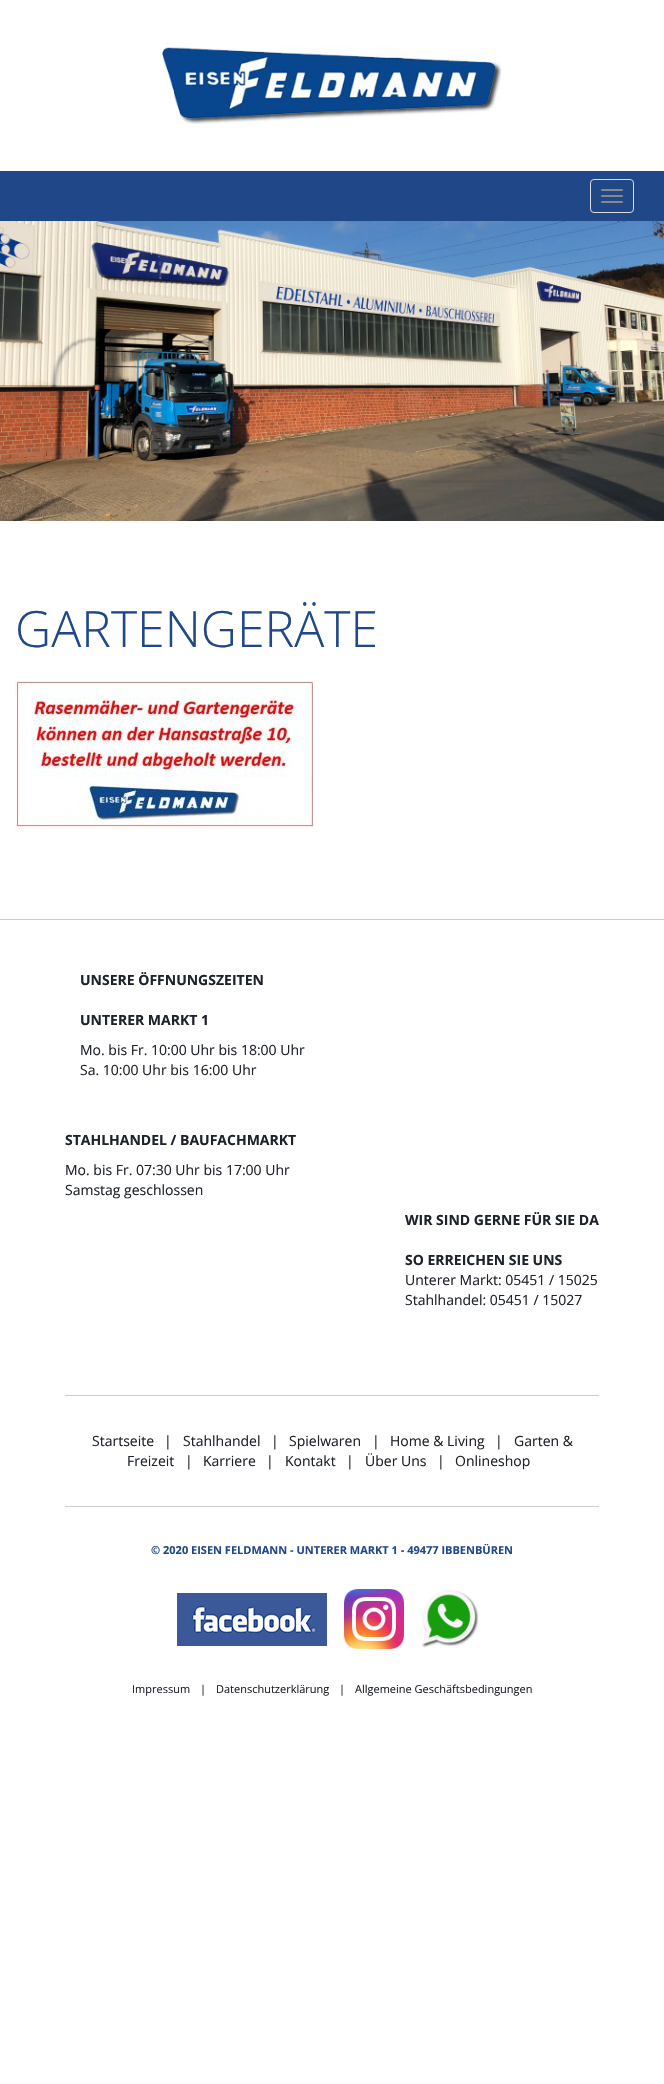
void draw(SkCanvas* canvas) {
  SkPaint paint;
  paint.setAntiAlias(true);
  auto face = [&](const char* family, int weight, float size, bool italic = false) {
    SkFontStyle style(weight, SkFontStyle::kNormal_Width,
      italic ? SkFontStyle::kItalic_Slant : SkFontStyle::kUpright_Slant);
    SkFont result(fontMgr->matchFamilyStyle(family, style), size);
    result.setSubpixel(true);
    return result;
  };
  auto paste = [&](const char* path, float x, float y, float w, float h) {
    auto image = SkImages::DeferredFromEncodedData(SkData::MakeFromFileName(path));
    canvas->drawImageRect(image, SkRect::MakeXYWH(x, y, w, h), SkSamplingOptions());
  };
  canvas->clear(0xffffffff);
  paste("img/1.png", 162, 42, 340, 82);
  paint.setColor(0xff204889);
  canvas->drawRect(SkRect::MakeXYWH(0, 171, 664, 50), paint);
  paint.setStroke(true);
  paint.setStrokeWidth(1);
  paint.setColor(0xffdddddd);
  canvas->drawRoundRect(SkRect::MakeXYWH(590.5f, 179.5f, 43, 33), 3.5f, 3.5f, paint);
  paint.setStroke(false);
  paint.setColor(0xff888888);
  canvas->drawRoundRect(SkRect::MakeXYWH(601, 189, 22, 2), 1, 1, paint);
  canvas->drawRoundRect(SkRect::MakeXYWH(601, 195, 22, 2), 1, 1, paint);
  canvas->drawRoundRect(SkRect::MakeXYWH(601, 201, 22, 2), 1, 1, paint);
  paste("img/2.png", 0, 221, 664, 300);
  paste("img/3.png", 15, 681, 300, 148);
  {
    const struct { float x, y, w, h; SkColor color; } items[] = {
      {0, 919, 664, 1, 0xffcdcdcd},
      {65, 1395, 534, 1, 0xffcdcdcd},
      {65, 1506, 534, 1, 0xffcdcdcd},
    };
    for (auto [x, y, w, h, color] : items) {
      paint.setColor(color);
      canvas->drawRect(SkRect::MakeXYWH(x, y, w, h), paint);
    }
  }
  paste("img/4.png", 177, 1593, 150, 53);
  paste("img/5.png", 344, 1589, 60, 60);
  paste("img/6.png", 422, 1590, 57, 58);
  auto f0 = face("Open Sans", 300, 50);
  paint.setColor(0xff204889);
  canvas->drawString("GARTENGERÄTE", 15, 647, f0, paint);
  auto f1 = face("Open Sans", 700, 14);
  paint.setColor(0xff1e2229);
  canvas->drawString("UNSERE ÖFFNUNGSZEITEN", 80, 985, f1, paint);
  canvas->drawString("UNTERER MARKT 1", 80, 1025, f1, paint);
  auto f2 = face("Open Sans", 400, 14);
  canvas->drawString("Mo. bis Fr. 10:00 Uhr bis 18:00 Uhr", 80, 1055, f2, paint);
  canvas->drawString("Sa. 10:00 Uhr bis 16:00 Uhr", 80, 1075, f2, paint);
  canvas->drawString("STAHLHANDEL / BAUFACHMARKT", 65, 1145, f1, paint);
  canvas->drawString("Mo. bis Fr. 07:30 Uhr bis 17:00 Uhr", 65, 1175, f2, paint);
  canvas->drawString("Samstag geschlossen", 65, 1195, f2, paint);
  canvas->drawString("WIR SIND GERNE FÜR SIE DA", 405, 1225, f1, paint);
  canvas->drawString("SO ERREICHEN SIE UNS", 405, 1265, f1, paint);
  {
    const struct { const char* s; float x, y; } items[] = {
      {"Unterer Markt: 05451 / 15025", 405, 1285},
      {"Stahlhandel: 05451 / 15027", 405, 1305},
      {"Startseite", 92, 1446},
      {"|", 164, 1446},
      {"Stahlhandel", 183, 1446},
      {"|", 271, 1446},
      {"Spielwaren", 289, 1446},
      {"|", 372, 1446},
      {"Home & Living", 390, 1446},
      {"|", 495, 1446},
      {"Garten &", 514, 1446},
      {"Freizeit", 127, 1466},
      {"|", 185, 1466},
      {"Karriere", 203, 1466},
      {"|", 266, 1466},
      {"Kontakt", 285, 1466},
      {"|", 346, 1466},
      {"Über Uns", 365, 1466},
      {"|", 437, 1466},
      {"Onlineshop", 455, 1466},
    };
    for (auto [s, x, y] : items) {
      canvas->drawString(s, x, y, f2, paint);
    }
  }
  auto f3 = face("Open Sans", 700, 11);
  paint.setColor(0xff204889);
  canvas->drawString("© 2020 EISEN FELDMANN - UNTERER MARKT 1 - 49477 IBBENBÜREN", 151, 1554, f3, paint);
  auto f4 = face("Open Sans", 400, 11);
  paint.setColor(0xff1e2229);
  {
    const struct { const char* s; float x, y; } items[] = {
      {"Impressum", 132, 1693},
      {"|", 200, 1693},
      {"Datenschutzerklärung", 216, 1693},
      {"|", 339, 1693},
      {"Allgemeine Geschäftsbedingungen", 355, 1693},
    };
    for (auto [s, x, y] : items) {
      canvas->drawString(s, x, y, f4, paint);
    }
  }
}
